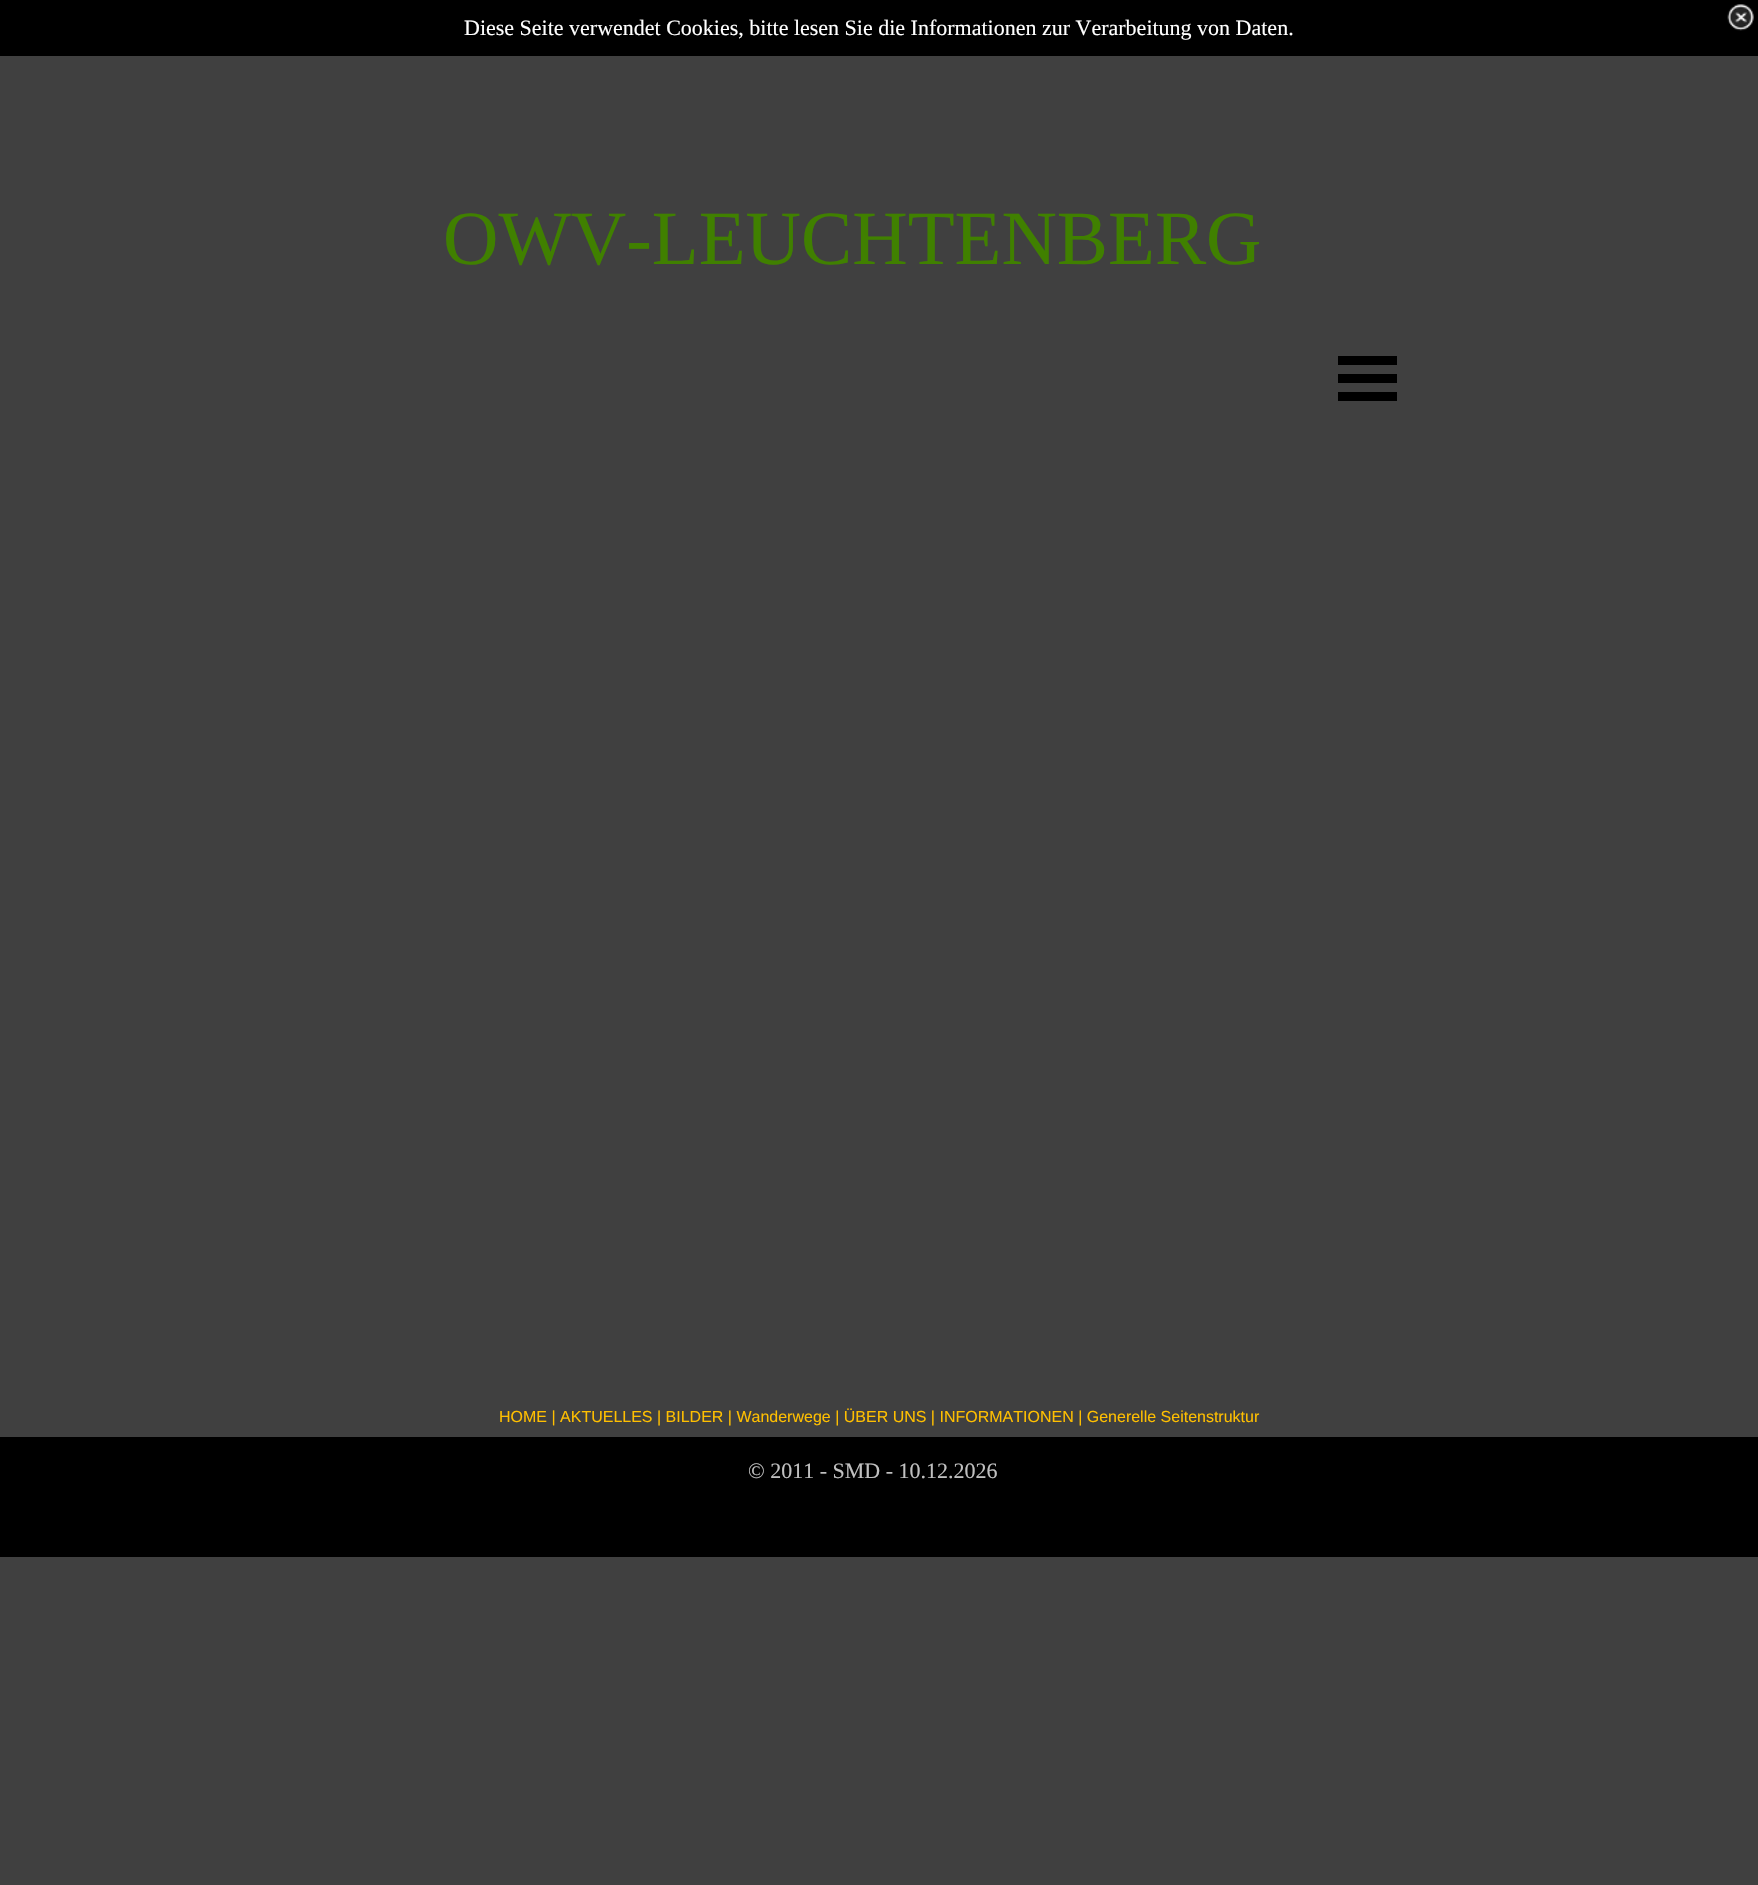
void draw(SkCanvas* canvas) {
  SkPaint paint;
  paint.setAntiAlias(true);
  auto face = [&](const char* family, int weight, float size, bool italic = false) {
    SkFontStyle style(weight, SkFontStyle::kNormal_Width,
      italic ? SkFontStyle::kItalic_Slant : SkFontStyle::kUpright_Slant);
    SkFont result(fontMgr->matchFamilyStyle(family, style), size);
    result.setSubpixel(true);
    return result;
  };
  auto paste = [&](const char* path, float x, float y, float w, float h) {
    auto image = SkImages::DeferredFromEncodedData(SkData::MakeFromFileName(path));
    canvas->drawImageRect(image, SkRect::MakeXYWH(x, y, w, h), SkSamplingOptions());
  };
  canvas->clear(0xff404040);
  paint.setColor(0xff000000);
  canvas->drawRect(SkRect::MakeXYWH(0, 0, 1758, 56), paint);
  paste("img/1.png", 1727, 4, 27, 27);
  {
    const struct { float x, y, w, h; SkColor color; } items[] = {
      {1338, 356, 59, 9, 0xff000000},
      {1338, 374, 59, 9, 0xff000000},
      {1338, 392, 59, 9, 0xff000000},
      {0, 1437, 1758, 120, 0xff000000},
    };
    for (auto [x, y, w, h, color] : items) {
      paint.setColor(color);
      canvas->drawRect(SkRect::MakeXYWH(x, y, w, h), paint);
    }
  }
  auto f0 = face("Liberation Serif", 400, 22);
  paint.setColor(0xffffffff);
  canvas->drawString("Diese Seite verwendet Cookies, bitte lesen Sie die Informationen zur Verarbeitung von Daten.", 464, 35, f0, paint);
  auto f1 = face("Liberation Serif", 400, 76.75f);
  paint.setColor(0xff408000);
  canvas->drawString("OWV-LEUCHTENBERG", 443, 264, f1, paint);
  auto f2 = face("Liberation Sans", 400, 16);
  paint.setColor(0xffffbf00);
  canvas->drawString("HOME | AKTUELLES | BILDER | Wanderwege | ÜBER UNS | INFORMATIONEN | Generelle Seitenstruktur", 499, 1422, f2, paint);
  paint.setColor(0xffc0c0c0);
  canvas->drawString("© 2011 - SMD - 10.12.2026", 748, 1478, f0, paint);
}
